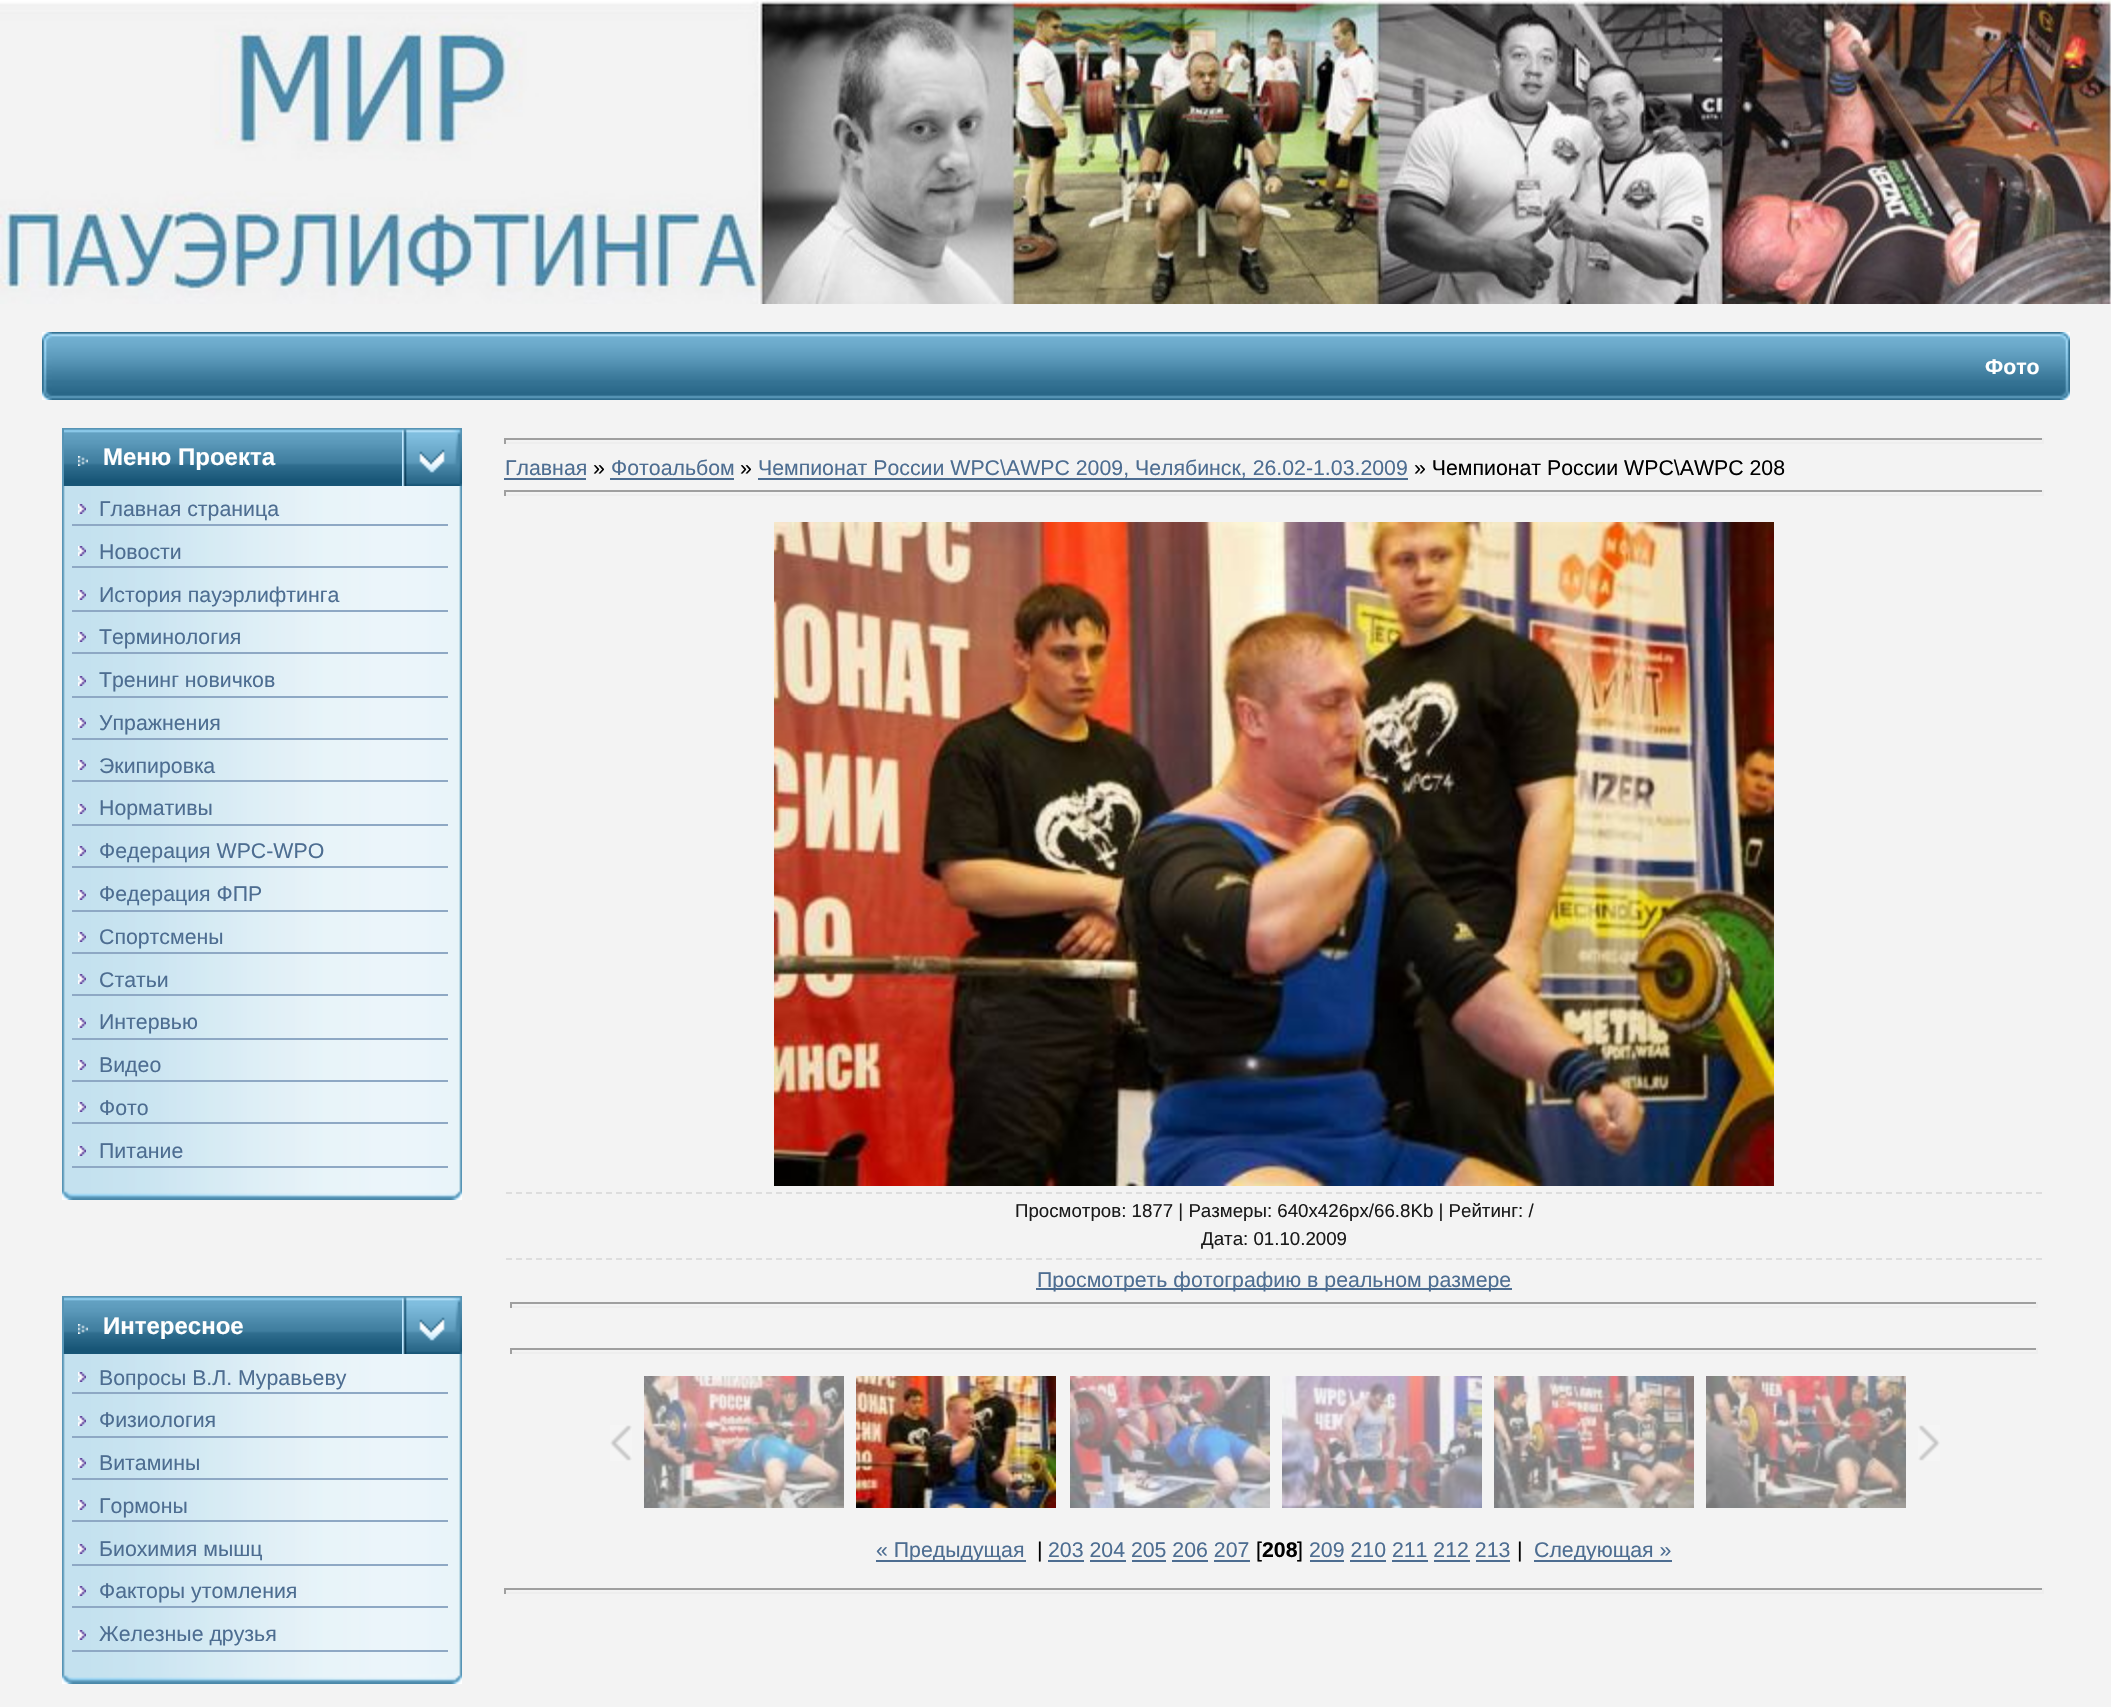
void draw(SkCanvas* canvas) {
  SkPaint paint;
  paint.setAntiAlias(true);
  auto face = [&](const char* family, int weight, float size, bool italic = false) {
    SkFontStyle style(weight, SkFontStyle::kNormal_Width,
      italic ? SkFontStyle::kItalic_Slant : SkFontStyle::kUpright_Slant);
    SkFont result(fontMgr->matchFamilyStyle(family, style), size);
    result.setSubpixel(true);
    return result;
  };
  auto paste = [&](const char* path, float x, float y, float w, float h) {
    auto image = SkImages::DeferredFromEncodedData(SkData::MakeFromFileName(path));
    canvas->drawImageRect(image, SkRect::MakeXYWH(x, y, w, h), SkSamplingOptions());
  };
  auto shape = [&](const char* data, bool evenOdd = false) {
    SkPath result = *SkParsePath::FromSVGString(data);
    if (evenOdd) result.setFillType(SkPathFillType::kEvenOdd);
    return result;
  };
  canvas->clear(0xfff3f3f3);
  paste("img/1.png", 0, 0, 2111, 304);
  paste("img/2.png", 42, 332, 10, 68);
  paste("img/3.png", 52, 332, 1404, 68);
  paste("img/4.png", 1456, 332, 604, 68);
  paste("img/5.png", 2060, 332, 10, 68);
  paste("img/6.png", 64, 428, 338, 58);
  paint.setColor(0xff5694b5);
  canvas->drawRect(SkRect::MakeXYWH(62, 428, 2, 58), paint);
  paste("img/7.png", 78, 456, 10, 10);
  paste("img/8.png", 402, 428, 60, 1);
  paste("img/9.png", 402, 429, 60, 57);
  paste("img/10.png", 62, 486, 400, 704);
  paste("img/11.png", 78, 504, 8, 10);
  paint.setColor(0xff8ea8c4);
  canvas->drawRect(SkRect::MakeXYWH(72, 524, 376, 2), paint);
  paste("img/11.png", 78, 546, 8, 10);
  canvas->drawRect(SkRect::MakeXYWH(72, 566, 376, 2), paint);
  paste("img/11.png", 78, 590, 8, 10);
  canvas->drawRect(SkRect::MakeXYWH(72, 610, 376, 2), paint);
  paste("img/11.png", 78, 632, 8, 10);
  canvas->drawRect(SkRect::MakeXYWH(72, 652, 376, 2), paint);
  paste("img/11.png", 78, 676, 8, 10);
  canvas->drawRect(SkRect::MakeXYWH(72, 696, 376, 2), paint);
  paste("img/11.png", 78, 718, 8, 10);
  canvas->drawRect(SkRect::MakeXYWH(72, 738, 376, 2), paint);
  paste("img/11.png", 78, 760, 8, 10);
  canvas->drawRect(SkRect::MakeXYWH(72, 780, 376, 2), paint);
  paste("img/11.png", 78, 804, 8, 10);
  canvas->drawRect(SkRect::MakeXYWH(72, 824, 376, 2), paint);
  paste("img/11.png", 78, 846, 8, 10);
  canvas->drawRect(SkRect::MakeXYWH(72, 866, 376, 2), paint);
  paste("img/11.png", 78, 890, 8, 10);
  canvas->drawRect(SkRect::MakeXYWH(72, 910, 376, 2), paint);
  paste("img/11.png", 78, 932, 8, 10);
  canvas->drawRect(SkRect::MakeXYWH(72, 952, 376, 2), paint);
  paste("img/11.png", 78, 974, 8, 10);
  canvas->drawRect(SkRect::MakeXYWH(72, 994, 376, 2), paint);
  paste("img/11.png", 78, 1018, 8, 10);
  canvas->drawRect(SkRect::MakeXYWH(72, 1038, 376, 2), paint);
  paste("img/11.png", 78, 1060, 8, 10);
  canvas->drawRect(SkRect::MakeXYWH(72, 1080, 376, 2), paint);
  paste("img/11.png", 78, 1102, 8, 10);
  canvas->drawRect(SkRect::MakeXYWH(72, 1122, 376, 2), paint);
  paste("img/11.png", 78, 1146, 8, 10);
  canvas->drawRect(SkRect::MakeXYWH(72, 1166, 376, 2), paint);
  paste("img/12.png", 62, 1190, 400, 10);
  paste("img/6.png", 64, 1296, 338, 58);
  paint.setColor(0xff5694b5);
  canvas->drawRect(SkRect::MakeXYWH(62, 1296, 2, 58), paint);
  paste("img/7.png", 78, 1324, 10, 10);
  paste("img/8.png", 402, 1296, 60, 1);
  paste("img/9.png", 402, 1297, 60, 57);
  paste("img/13.png", 62, 1354, 400, 320);
  paste("img/11.png", 78, 1372, 8, 10);
  paint.setColor(0xff8ea8c4);
  canvas->drawRect(SkRect::MakeXYWH(72, 1392, 376, 2), paint);
  paste("img/11.png", 78, 1416, 8, 10);
  canvas->drawRect(SkRect::MakeXYWH(72, 1436, 376, 2), paint);
  paste("img/11.png", 78, 1458, 8, 10);
  canvas->drawRect(SkRect::MakeXYWH(72, 1478, 376, 2), paint);
  paste("img/11.png", 78, 1500, 8, 10);
  canvas->drawRect(SkRect::MakeXYWH(72, 1520, 376, 2), paint);
  paste("img/11.png", 78, 1544, 8, 10);
  canvas->drawRect(SkRect::MakeXYWH(72, 1564, 376, 2), paint);
  paste("img/11.png", 78, 1586, 8, 10);
  canvas->drawRect(SkRect::MakeXYWH(72, 1606, 376, 2), paint);
  paste("img/11.png", 78, 1630, 8, 10);
  canvas->drawRect(SkRect::MakeXYWH(72, 1650, 376, 2), paint);
  paste("img/12.png", 62, 1674, 400, 10);
  {
    const struct { float x, y, w, h; SkColor color; } items[] = {
      {504, 438, 1540, 2, 0xff9f9f9f},
      {2042, 438, 2, 6, 0xffeeeeee},
      {504, 442, 1540, 2, 0xffeeeeee},
      {504, 438, 2, 6, 0xff9f9f9f},
      {504, 478, 82, 2, 0xff4d6d91},
      {610, 478, 124, 2, 0xff4d6d91},
      {758, 478, 650, 2, 0xff4d6d91},
      {504, 490, 1540, 2, 0xff9f9f9f},
      {2042, 490, 2, 6, 0xffeeeeee},
      {504, 494, 1540, 2, 0xffeeeeee},
      {504, 490, 2, 6, 0xff9f9f9f},
    };
    for (auto [x, y, w, h, color] : items) {
      paint.setColor(color);
      canvas->drawRect(SkRect::MakeXYWH(x, y, w, h), paint);
    }
  }
  paste("img/14.png", 774, 522, 1000, 664);
  paint.setStroke(true);
  paint.setStrokeWidth(2);
  paint.setColor(0xffdddddd);
  paint.setPathEffect(SkDashPathEffect::Make({{6, 4}}, 0));
  canvas->drawPath(shape("M506 1193H2042"), paint);
  paint.setPathEffect(nullptr);
  paint.setPathEffect(SkDashPathEffect::Make({{6, 4}}, 0));
  canvas->drawPath(shape("M506 1259H2042"), paint);
  paint.setPathEffect(nullptr);
  paint.setStroke(false);
  {
    const struct { float x, y, w, h; SkColor color; } items[] = {
      {1036, 1288, 476, 2, 0xff4d6d91},
      {510, 1302, 1528, 2, 0xff9f9f9f},
      {2036, 1302, 2, 6, 0xffeeeeee},
      {510, 1306, 1528, 2, 0xffeeeeee},
      {510, 1302, 2, 6, 0xff9f9f9f},
      {510, 1348, 1528, 2, 0xff9f9f9f},
      {2036, 1348, 2, 6, 0xffeeeeee},
      {510, 1352, 1528, 2, 0xffeeeeee},
      {510, 1348, 2, 6, 0xff9f9f9f},
    };
    for (auto [x, y, w, h, color] : items) {
      paint.setColor(color);
      canvas->drawRect(SkRect::MakeXYWH(x, y, w, h), paint);
    }
  }
  paste("img/15.png", 610, 1425, 22, 36);
  paste("img/16.png", 644, 1376, 200, 132);
  paste("img/17.png", 856, 1376, 200, 132);
  paste("img/18.png", 1070, 1376, 200, 132);
  paste("img/19.png", 1282, 1376, 200, 132);
  paste("img/20.png", 1494, 1376, 200, 132);
  paste("img/21.png", 1706, 1376, 200, 132);
  paste("img/22.png", 1918, 1425, 22, 36);
  {
    const struct { float x, y, w, h; SkColor color; } items[] = {
      {876, 1560, 150, 2, 0xff4d6d91},
      {1048, 1560, 36, 2, 0xff4d6d91},
      {1310, 1560, 34, 2, 0xff4d6d91},
      {1534, 1560, 138, 2, 0xff4d6d91},
      {1090, 1560, 36, 2, 0xff4d6d91},
      {1132, 1560, 34, 2, 0xff4d6d91},
      {1172, 1560, 36, 2, 0xff4d6d91},
      {1214, 1560, 36, 2, 0xff4d6d91},
      {1350, 1560, 36, 2, 0xff4d6d91},
      {1392, 1560, 36, 2, 0xff4d6d91},
      {1434, 1560, 36, 2, 0xff4d6d91},
      {1476, 1560, 34, 2, 0xff4d6d91},
      {504, 1588, 1540, 2, 0xff9f9f9f},
      {2042, 1588, 2, 6, 0xffeeeeee},
      {504, 1592, 1540, 2, 0xffeeeeee},
      {504, 1588, 2, 6, 0xff9f9f9f},
    };
    for (auto [x, y, w, h, color] : items) {
      paint.setColor(color);
      canvas->drawRect(SkRect::MakeXYWH(x, y, w, h), paint);
    }
  }
  auto f0 = face("Liberation Sans", 700, 21.3f);
  paint.setColor(0xffffffff);
  canvas->drawString("Фото", 1985, 374, f0, paint);
  auto f1 = face("Liberation Sans", 700, 24);
  canvas->drawString("Меню Проекта", 103, 465, f1, paint);
  auto f2 = face("Liberation Sans", 400, 21.3f);
  paint.setColor(0xff4d6d91);
  {
    const struct { const char* s; float x, y; } items[] = {
      {"Главная страница", 99, 516},
      {"Новости", 99, 559},
      {"История пауэрлифтинга", 99, 602},
      {"Терминология", 99, 644},
      {"Тренинг новичков", 99, 687},
      {"Упражнения", 99, 730},
      {"Экипировка", 99, 773},
      {"Нормативы", 99, 815},
      {"Федерация WPC-WPO", 99, 858},
      {"Федерация ФПР", 99, 901},
      {"Спортсмены", 99, 944},
      {"Статьи", 99, 987},
      {"Интервью", 99, 1029},
      {"Видео", 99, 1072},
      {"Фото", 99, 1115},
      {"Питание", 99, 1158},
    };
    for (auto [s, x, y] : items) {
      canvas->drawString(s, x, y, f2, paint);
    }
  }
  paint.setColor(0xffffffff);
  canvas->drawString("Интересное", 103, 1334, f1, paint);
  paint.setColor(0xff4d6d91);
  {
    const struct { const char* s; float x, y; } items[] = {
      {"Вопросы В.Л. Муравьеву", 99, 1385},
      {"Физиология", 99, 1427},
      {"Витамины", 99, 1470},
      {"Гормоны", 99, 1513},
      {"Биохимия мышц", 99, 1556},
      {"Факторы утомления", 99, 1598},
      {"Железные друзья", 99, 1641},
      {"Главная", 505, 475},
    };
    for (auto [s, x, y] : items) {
      canvas->drawString(s, x, y, f2, paint);
    }
  }
  paint.setColor(0xff000000);
  canvas->drawString("»", 593, 475, f2, paint);
  paint.setColor(0xff4d6d91);
  canvas->drawString("Фотоальбом", 611, 475, f2, paint);
  paint.setColor(0xff000000);
  canvas->drawString("»", 740, 475, f2, paint);
  paint.setColor(0xff4d6d91);
  canvas->drawString("Чемпионат России WPC\\AWPC 2009, Челябинск, 26.02-1.03.2009", 758, 475, f2, paint);
  paint.setColor(0xff000000);
  canvas->drawString("» Чемпионат России WPC\\AWPC 208", 1414, 475, f2, paint);
  auto f3 = face("Liberation Sans", 400, 18.7f);
  paint.setColor(0xff1a1a1a);
  canvas->drawString("Просмотров: 1877 | Размеры: 640x426px/66.8Kb | Рейтинг: /", 1015, 1217, f3, paint);
  canvas->drawString("Дата: 01.10.2009", 1201, 1245, f3, paint);
  paint.setColor(0xff4d6d91);
  canvas->drawString("Просмотреть фотографию в реальном размере", 1037, 1287, f2, paint);
  canvas->drawString("« Предыдущая", 876, 1557, f2, paint);
  paint.setColor(0xff000000);
  canvas->drawString("|", 1037, 1557, f2, paint);
  paint.setColor(0xff4d6d91);
  canvas->drawString("203 204 205 206 207", 1048, 1557, f2, paint);
  paint.setColor(0xff000000);
  canvas->drawString("[", 1256, 1557, f2, paint);
  canvas->drawString("208", 1262, 1557, f0, paint);
  canvas->drawString("]", 1297, 1557, f2, paint);
  paint.setColor(0xff4d6d91);
  canvas->drawString("209 210 211 212 213", 1309, 1557, f2, paint);
  paint.setColor(0xff000000);
  canvas->drawString("|", 1517, 1557, f2, paint);
  paint.setColor(0xff4d6d91);
  canvas->drawString("Следующая »", 1534, 1557, f2, paint);
}
